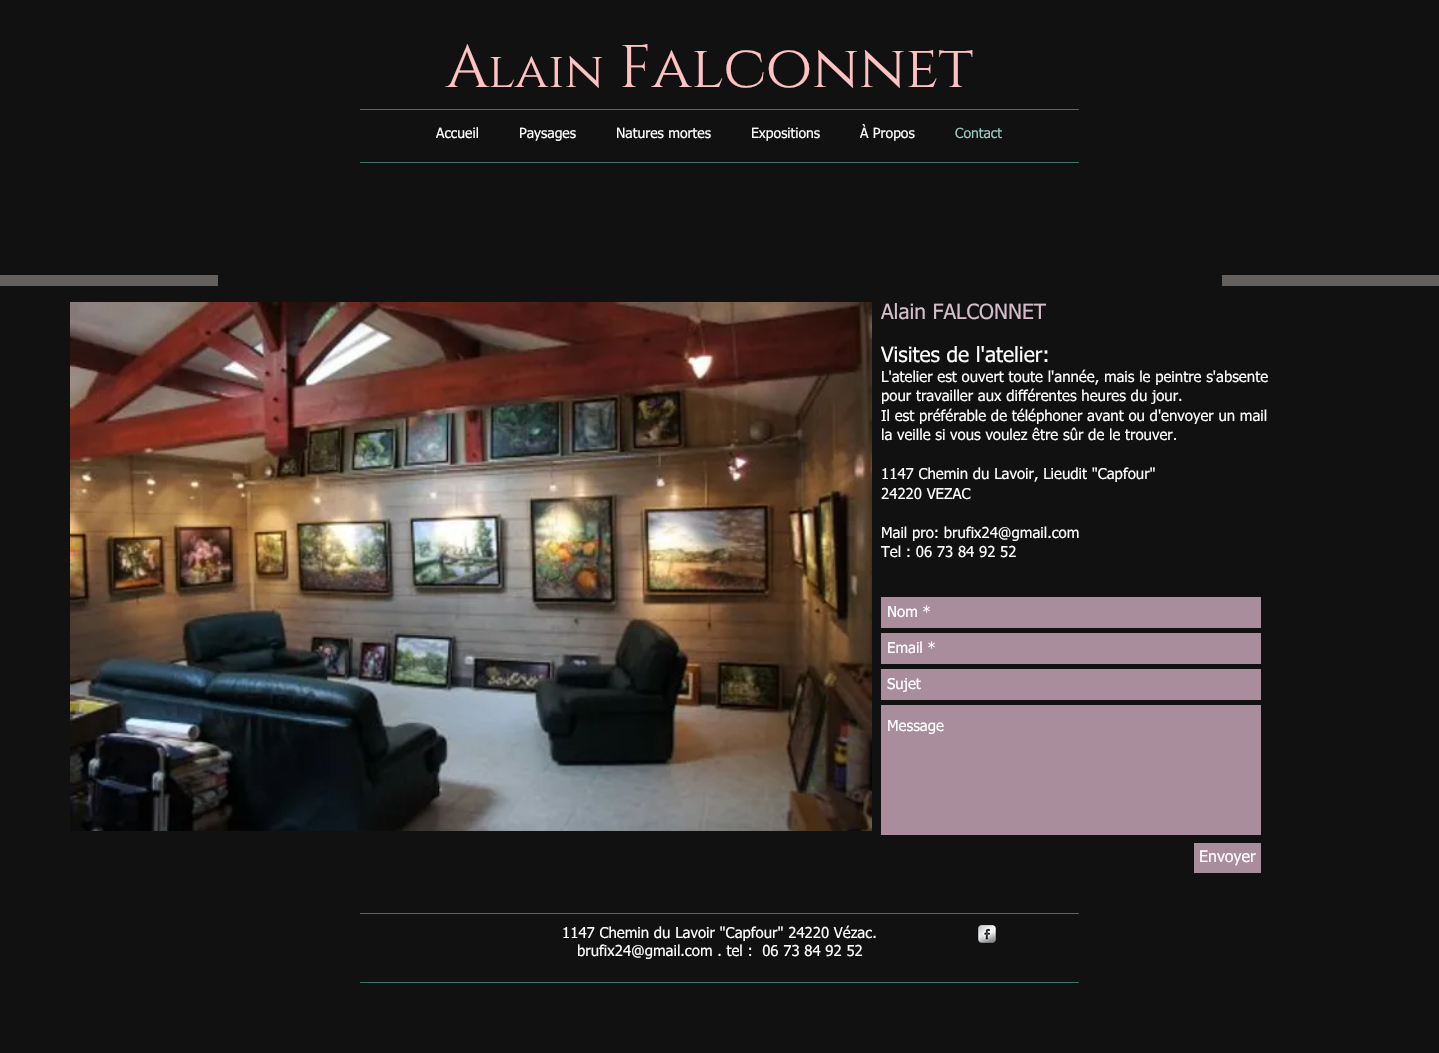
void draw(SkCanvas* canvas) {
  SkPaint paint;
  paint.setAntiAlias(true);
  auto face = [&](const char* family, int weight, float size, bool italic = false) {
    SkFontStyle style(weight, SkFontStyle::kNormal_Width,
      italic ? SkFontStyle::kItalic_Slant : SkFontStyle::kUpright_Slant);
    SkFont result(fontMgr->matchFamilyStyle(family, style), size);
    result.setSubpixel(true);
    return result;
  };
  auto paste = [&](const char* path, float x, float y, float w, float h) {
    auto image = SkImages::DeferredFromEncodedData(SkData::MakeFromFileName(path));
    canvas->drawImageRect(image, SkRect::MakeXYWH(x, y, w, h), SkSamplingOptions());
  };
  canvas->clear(0xff111111);
  {
    const struct { float x, y, w, h; SkColor color; } items[] = {
      {360, 109, 719, 1, 0xff3d746b},
      {360, 162, 719, 1, 0xff3d746b},
      {0, 275, 218, 11, 0xff63605d},
      {1222, 275, 217, 11, 0xff63605d},
    };
    for (auto [x, y, w, h, color] : items) {
      paint.setColor(color);
      canvas->drawRect(SkRect::MakeXYWH(x, y, w, h), paint);
    }
  }
  paste("img/1.png", 70, 302, 802, 529);
  {
    const struct { float x, y, w, h; SkColor color; } items[] = {
      {881, 597, 380, 31, 0xffaa8d9d},
      {881, 633, 380, 31, 0xffaa8d9d},
      {881, 669, 380, 31, 0xffaa8d9d},
      {881, 705, 380, 130, 0xffaa8d9d},
      {1194, 843, 67, 30, 0xffaa8d9d},
      {360, 913, 719, 1, 0xff3d746b},
    };
    for (auto [x, y, w, h, color] : items) {
      paint.setColor(color);
      canvas->drawRect(SkRect::MakeXYWH(x, y, w, h), paint);
    }
  }
  paste("img/2.png", 978, 925, 18, 18);
  canvas->drawRect(SkRect::MakeXYWH(360, 982, 719, 1), paint);
  auto f0 = face("Cinzel", 400, 60);
  paint.setColor(0xffffc2c2);
  canvas->drawString("A", 446, 87, f0, paint);
  auto f1 = face("Cinzel", 400, 50);
  canvas->drawString("lain", 488, 87, f1, paint);
  canvas->drawString("Falconnet", 619, 87, f0, paint);
  auto f2 = face("tahoma", 400, 14);
  paint.setColor(0xffffffff);
  {
    const struct { const char* s; float x, y; } items[] = {
      {"Accueil", 436, 138},
      {"Paysages", 519, 138},
      {"Natures mortes", 616, 138},
      {"Expositions", 751, 138},
      {"À Propos", 860, 138},
    };
    for (auto [s, x, y] : items) {
      canvas->drawString(s, x, y, f2, paint);
    }
  }
  paint.setColor(0xff99c9c1);
  canvas->drawString("Contact", 955, 138, f2, paint);
  auto f3 = face("tahoma", 400, 21);
  paint.setColor(0xffd4bcca);
  canvas->drawString("Alain FALCONNET", 881, 319, f3, paint);
  paint.setColor(0xffffffff);
  canvas->drawString("Visites de l'atelier:", 881, 362, f3, paint);
  auto f4 = face("tahoma", 400, 15);
  {
    const struct { const char* s; float x, y; } items[] = {
      {"L'atelier est ouvert toute l'année, mais le peintre s'absente", 881, 382},
      {"pour travailler aux différentes heures du jour.", 881, 401},
      {"Il est préférable de téléphoner avant ou d'envoyer un mail", 881, 421},
      {"la veille si vous voulez être sûr de le trouver.", 881, 440},
      {"1147 Chemin du Lavoir, Lieudit \"Capfour\"", 881, 479},
      {"24220 VEZAC", 881, 499},
      {"Mail pro: brufix24@gmail.com", 881, 538},
      {"Tel : 06 73 84 92 52", 881, 557},
      {"Nom *", 887, 617},
      {"Email *", 887, 653},
      {"Sujet", 887, 689},
      {"Message", 887, 731},
    };
    for (auto [s, x, y] : items) {
      canvas->drawString(s, x, y, f4, paint);
    }
  }
  auto f5 = face("tahoma", 400, 16);
  canvas->drawString("Envoyer", 1199, 862, f5, paint);
  canvas->drawString("1147 Chemin du Lavoir \"Capfour\" 24220 Vézac.", 562, 938, f4, paint);
  canvas->drawString("brufix24@gmail.com . tel :  06 73 84 92 52", 577, 956, f4, paint);
}
